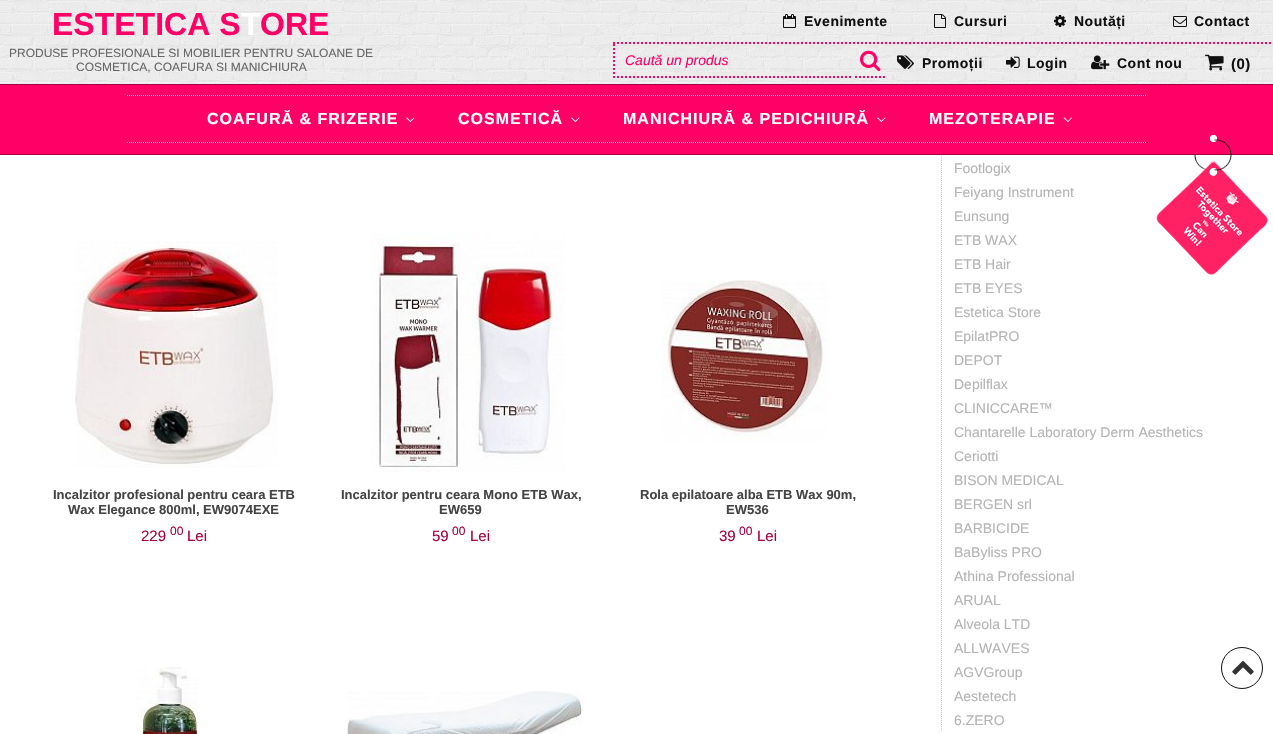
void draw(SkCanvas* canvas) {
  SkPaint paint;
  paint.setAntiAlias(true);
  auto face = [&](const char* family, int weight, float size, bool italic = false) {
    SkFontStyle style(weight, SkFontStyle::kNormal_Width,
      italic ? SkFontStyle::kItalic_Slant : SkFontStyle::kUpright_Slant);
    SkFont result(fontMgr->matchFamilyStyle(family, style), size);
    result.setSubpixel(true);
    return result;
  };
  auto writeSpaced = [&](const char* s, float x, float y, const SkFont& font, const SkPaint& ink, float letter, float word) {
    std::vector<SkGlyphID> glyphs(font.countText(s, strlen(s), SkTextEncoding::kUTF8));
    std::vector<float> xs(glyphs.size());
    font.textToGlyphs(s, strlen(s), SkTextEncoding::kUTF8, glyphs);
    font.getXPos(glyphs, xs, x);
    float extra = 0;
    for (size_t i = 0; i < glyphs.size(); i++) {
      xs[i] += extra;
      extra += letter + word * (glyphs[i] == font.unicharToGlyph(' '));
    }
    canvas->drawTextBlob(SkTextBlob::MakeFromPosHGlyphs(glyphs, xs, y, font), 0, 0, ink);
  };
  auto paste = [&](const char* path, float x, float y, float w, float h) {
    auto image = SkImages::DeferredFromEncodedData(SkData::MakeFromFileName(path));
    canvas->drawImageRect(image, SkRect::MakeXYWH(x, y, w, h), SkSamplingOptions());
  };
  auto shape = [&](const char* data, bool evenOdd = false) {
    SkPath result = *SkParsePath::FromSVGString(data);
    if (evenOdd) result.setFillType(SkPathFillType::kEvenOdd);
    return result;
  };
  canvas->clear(0xffffffff);
  paint.setStroke(true);
  paint.setStrokeWidth(1);
  paint.setColor(0xffcccccc);
  paint.setPathEffect(SkDashPathEffect::Make({{1, 1}}, 0));
  canvas->drawPath(shape("M941.5-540V732"), paint);
  paint.setPathEffect(nullptr);
  paste("img/1.png", 0, 0, 1273, 84);
  paste("img/2.png", 783, 14, 13, 14);
  paste("img/3.png", 934, 14, 12, 14);
  paste("img/4.png", 1054, 15, 12, 12);
  paste("img/5.png", 1173, 16, 14, 11);
  paint.setStrokeWidth(2);
  paint.setColor(0xffff0067);
  paint.setPathEffect(SkDashPathEffect::Make({{2, 2}}, 0));
  canvas->drawPath(shape("M613 43H1273"), paint);
  paint.setPathEffect(nullptr);
  paint.setPathEffect(SkDashPathEffect::Make({{2, 2}}, 0));
  canvas->drawPath(shape("M613 77H853"), paint);
  paint.setPathEffect(nullptr);
  paint.setPathEffect(SkDashPathEffect::Make({{2, 2}}, 0));
  canvas->drawPath(shape("M614 44V78"), paint);
  paint.setPathEffect(nullptr);
  paint.setPathEffect(SkDashPathEffect::Make({{2, 2}}, 0));
  canvas->drawPath(shape("M855 77H885"), paint);
  paint.setPathEffect(nullptr);
  paste("img/6.png", 860, 50, 21, 22);
  paste("img/7.png", 897, 55, 17, 14);
  paste("img/8.png", 1006, 56, 14, 12);
  paste("img/9.png", 1091, 55, 19, 15);
  paste("img/10.png", 1205, 54, 19, 17);
  paint.setStroke(false);
  {
    const struct { float x, y, w, h; SkColor color; } items[] = {
      {0, 85, 1273, 69, 0xffff0067},
      {0, 84, 1273, 1, 0xffa60043},
      {0, 154, 1273, 1, 0xffa60043},
    };
    for (auto [x, y, w, h, color] : items) {
      paint.setColor(color);
      canvas->drawRect(SkRect::MakeXYWH(x, y, w, h), paint);
    }
  }
  paint.setStroke(true);
  paint.setStrokeWidth(1);
  paint.setColor(0xffdddddd);
  paint.setPathEffect(SkDashPathEffect::Make({{1, 1}}, 0));
  canvas->drawPath(shape("M127 95.5H1146"), paint);
  paint.setPathEffect(nullptr);
  paint.setPathEffect(SkDashPathEffect::Make({{1, 1}}, 0));
  canvas->drawPath(shape("M127 142.5H1146"), paint);
  paint.setPathEffect(nullptr);
  paint.setStroke(false);
  paint.setColor(0xffffffff);
  canvas->drawPath(shape("M414 117.5L414.5 118L410.5 122L409.5 121.5Z"), paint);
  canvas->drawPath(shape("M407 117.5L411 121.5L410.5 122L406 118Z"), paint);
  canvas->drawPath(shape("M579 117.5L579.5 118L575.5 122L574.5 121.5Z"), paint);
  canvas->drawPath(shape("M572 117.5L576 121.5L575.5 122L571 118Z"), paint);
  canvas->drawPath(shape("M885 117.5L885.5 118L881.5 122L880.5 121.5Z"), paint);
  canvas->drawPath(shape("M878 117.5L882 121.5L881.5 122L877 118Z"), paint);
  canvas->drawPath(shape("M1071.5 117.5L1072 118L1068 122L1067.5 121.5Z"), paint);
  canvas->drawPath(shape("M1064.5 117.5L1068.5 121.5L1068 122L1063.5 118Z"), paint);
  paste("img/11.png", 1156, 135, 112, 140);
  paste("img/12.png", 75, 241, 203, 227);
  paste("img/13.png", 371, 233, 194, 239);
  paste("img/14.png", 661, 280, 167, 163);
  paste("img/15.png", 136, 667, 62, 67);
  paste("img/16.png", 347, 691, 236, 43);
  paint.setStroke(true);
  paint.setColor(0xff111111);
  canvas->drawCircle(1242, 668, 20.5f, paint);
  paste("img/17.png", 1232, 660, 22, 15);
  auto f0 = face("Liberation Sans", 700, 32);
  paint.setStroke(false);
  paint.setColor(0xffff0067);
  canvas->drawString("ESTETICA S", 52, 35, f0, paint);
  paint.setColor(0xffffffff);
  canvas->drawString("T", 241, 35, f0, paint);
  paint.setColor(0xffff0067);
  canvas->drawString("ORE", 260, 35, f0, paint);
  auto f1 = face("Liberation Sans", 400, 12);
  paint.setColor(0xff666666);
  canvas->drawString("PRODUSE PROFESIONALE SI MOBILIER PENTRU SALOANE DE", 9, 57, f1, paint);
  canvas->drawString("COSMETICA, COAFURA SI MANICHIURA", 76, 71, f1, paint);
  auto f2 = face("Liberation Sans", 700, 14);
  paint.setColor(0xff111111);
  {
    const struct { const char* s; float x, y; } items[] = {
      {"Evenimente", 804, 26},
      {"Cursuri", 954, 26},
      {"Noutăți", 1074, 26},
      {"Contact", 1194, 26},
    };
    for (auto [s, x, y] : items) {
      writeSpaced(s, x, y, f2, paint, 0.5f, 0);
    }
  }
  auto f3 = face("Liberation Sans", 400, 14, true);
  paint.setColor(0xffff0067);
  canvas->drawString("Caută un produs", 625, 65, f3, paint);
  paint.setColor(0xff111111);
  {
    const struct { const char* s; float x, y; } items[] = {
      {"Promoții", 922, 68},
      {"Login", 1027, 68},
      {"Cont nou", 1117, 68},
    };
    for (auto [s, x, y] : items) {
      writeSpaced(s, x, y, f2, paint, 0.5f, 0);
    }
  }
  auto f4 = face("Liberation Sans", 700, 15);
  writeSpaced("(0)", 1231, 69, f4, paint, 0.5f, 0);
  auto f5 = face("Liberation Sans", 700, 16);
  paint.setColor(0xffffffff);
  {
    const struct { const char* s; float x, y; } items[] = {
      {"COAFURĂ & FRIZERIE", 207, 124},
      {"COSMETICĂ", 458, 124},
      {"MANICHIURĂ & PEDICHIURĂ", 623, 124},
      {"MEZOTERAPIE", 929, 124},
    };
    for (auto [s, x, y] : items) {
      writeSpaced(s, x, y, f5, paint, 1, 0);
    }
  }
  auto f6 = face("Liberation Sans", 700, 13);
  paint.setColor(0xff444444);
  canvas->drawString("Incalzitor profesional pentru ceara ETB", 53, 499, f6, paint);
  canvas->drawString("Wax Elegance 800ml, EW9074EXE", 68, 514, f6, paint);
  auto f7 = face("Liberation Sans", 400, 15);
  paint.setColor(0xffa60043);
  canvas->drawString("229", 141, 541, f7, paint);
  canvas->drawString("00", 170, 535, f1, paint);
  canvas->drawString("Lei", 187, 541, f7, paint);
  paint.setColor(0xff444444);
  canvas->drawString("Incalzitor pentru ceara Mono ETB Wax,", 341, 499, f6, paint);
  canvas->drawString("EW659", 439, 514, f6, paint);
  paint.setColor(0xffa60043);
  canvas->drawString("59", 432, 541, f7, paint);
  canvas->drawString("00", 452, 535, f1, paint);
  canvas->drawString("Lei", 470, 541, f7, paint);
  paint.setColor(0xff444444);
  canvas->drawString("Rola epilatoare alba ETB Wax 90m,", 640, 499, f6, paint);
  canvas->drawString("EW536", 726, 514, f6, paint);
  paint.setColor(0xffa60043);
  canvas->drawString("39", 719, 541, f7, paint);
  canvas->drawString("00", 739, 535, f1, paint);
  canvas->drawString("Lei", 757, 541, f7, paint);
  auto f8 = face("Liberation Sans", 400, 14);
  paint.setColor(0xffb4b4b4);
  {
    const struct { const char* s; float x, y; } items[] = {
      {"Footlogix", 954, 173},
      {"Feiyang Instrument", 954, 197},
      {"Eunsung", 954, 221},
      {"ETB WAX", 954, 245},
      {"ETB Hair", 954, 269},
      {"ETB EYES", 954, 293},
      {"Estetica Store", 954, 317},
      {"EpilatPRO", 954, 341},
      {"DEPOT", 954, 365},
      {"Depilflax", 954, 389},
      {"CLINICCARE™", 954, 413},
      {"Chantarelle Laboratory Derm Aesthetics", 954, 437},
      {"Ceriotti", 954, 461},
      {"BISON MEDICAL", 954, 485},
      {"BERGEN srl", 954, 509},
      {"BARBICIDE", 954, 533},
      {"BaByliss PRO", 954, 557},
      {"Athina Professional", 954, 581},
      {"ARUAL", 954, 605},
      {"Alveola LTD", 954, 629},
      {"ALLWAVES", 954, 653},
      {"AGVGroup", 954, 677},
      {"Aestetech", 954, 701},
      {"6.ZERO", 954, 725},
    };
    for (auto [s, x, y] : items) {
      canvas->drawString(s, x, y, f8, paint);
    }
  }
}
